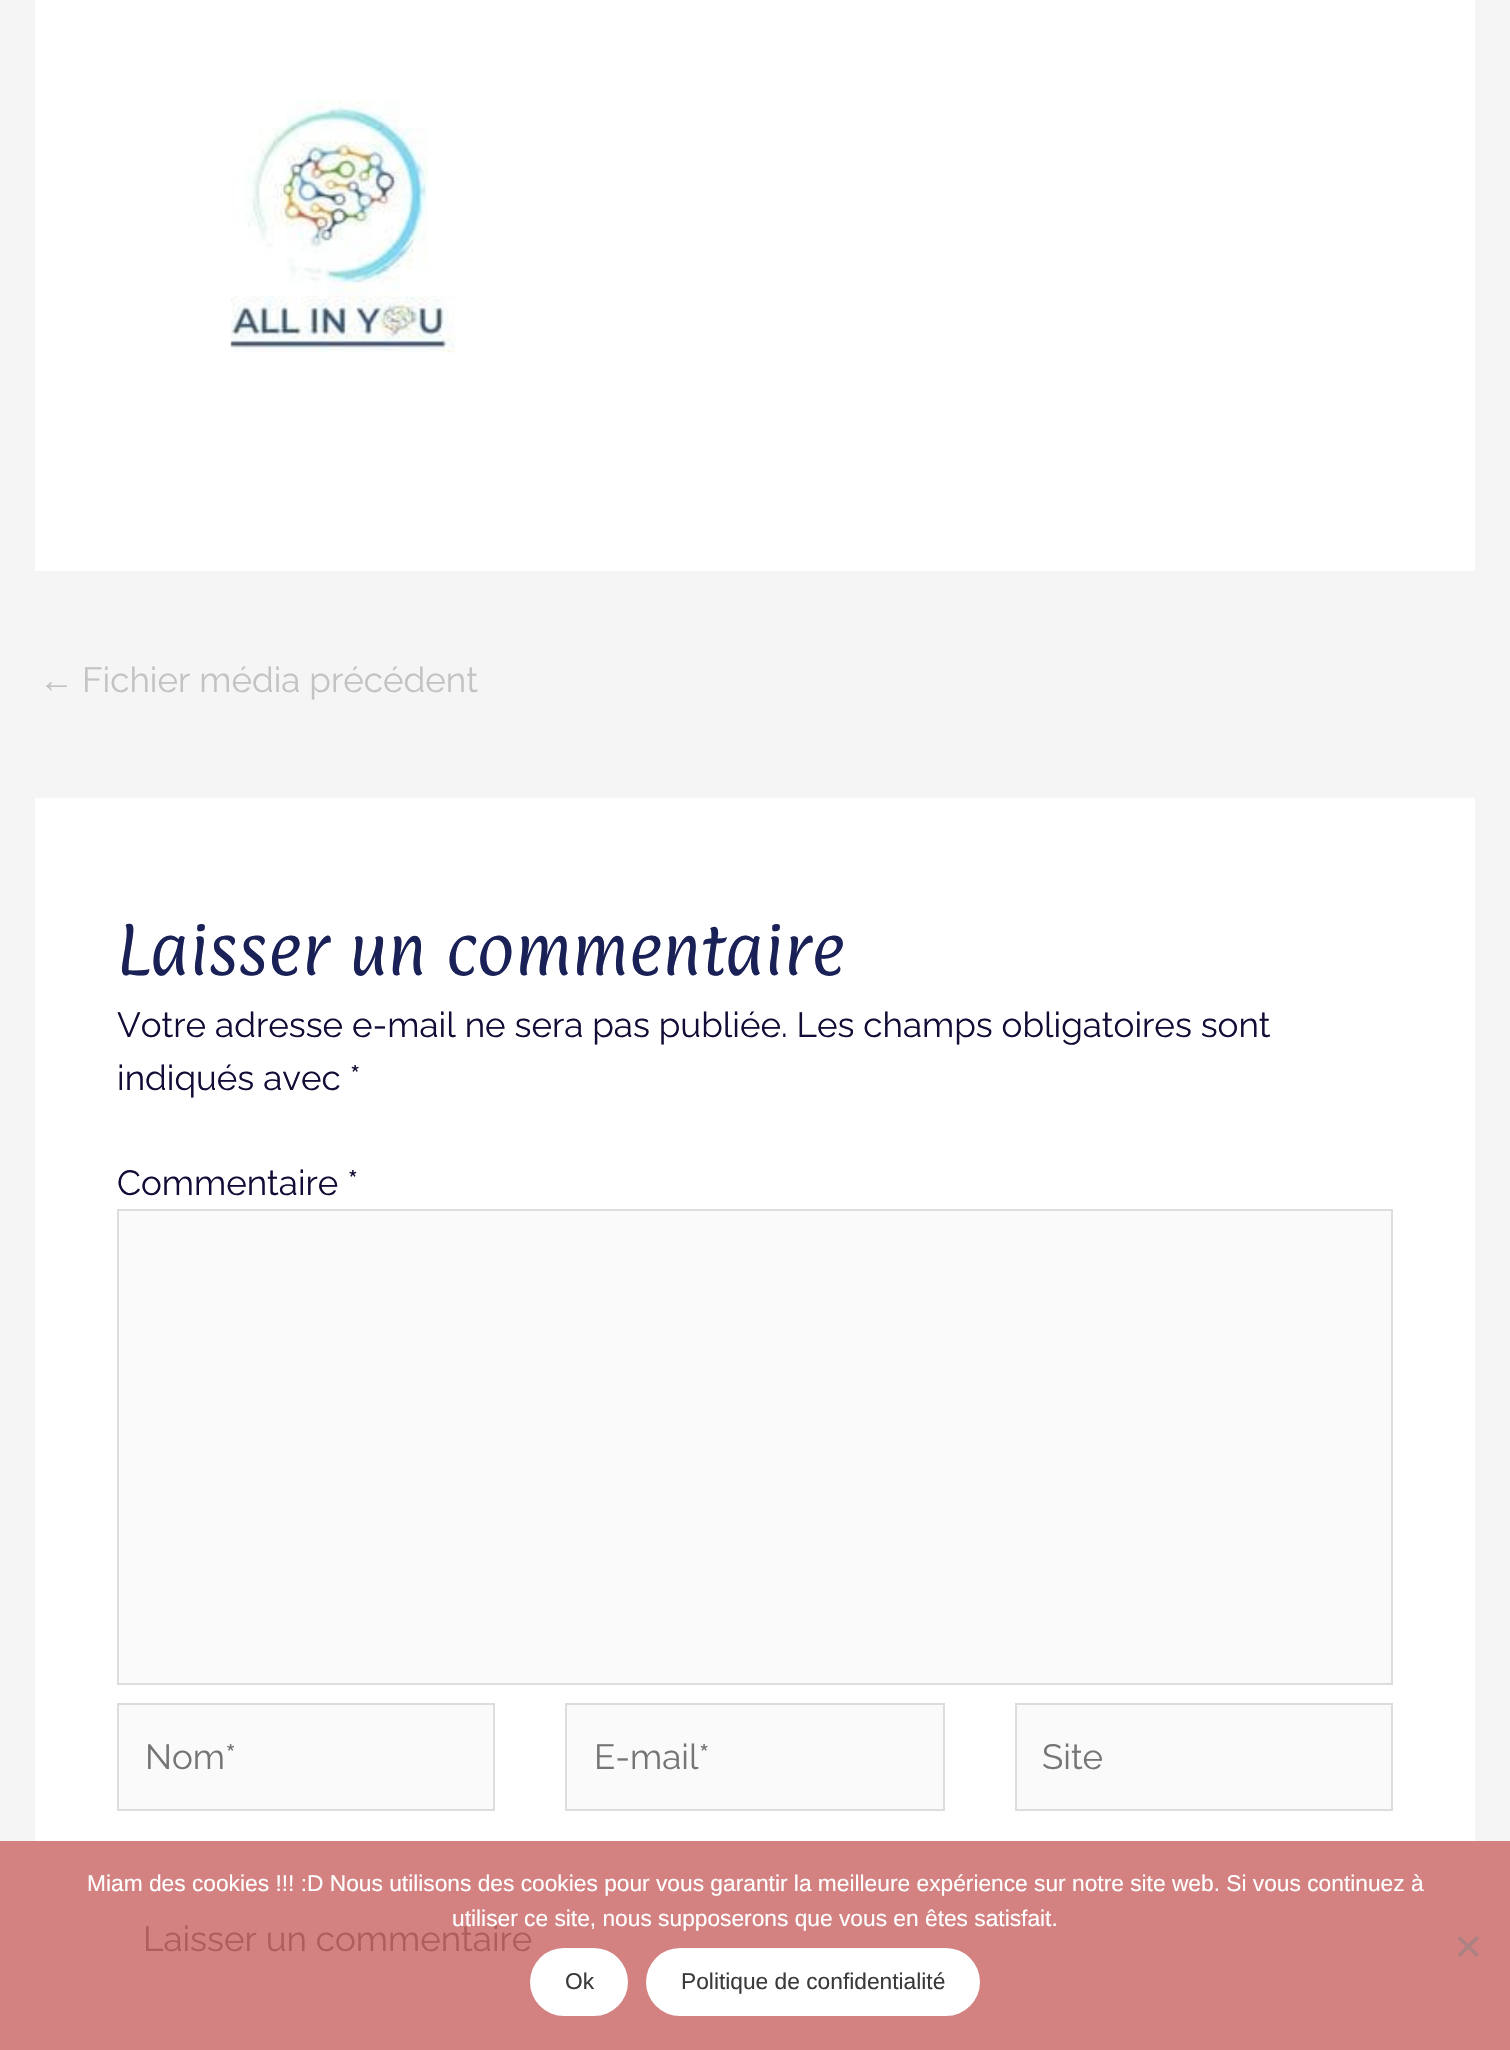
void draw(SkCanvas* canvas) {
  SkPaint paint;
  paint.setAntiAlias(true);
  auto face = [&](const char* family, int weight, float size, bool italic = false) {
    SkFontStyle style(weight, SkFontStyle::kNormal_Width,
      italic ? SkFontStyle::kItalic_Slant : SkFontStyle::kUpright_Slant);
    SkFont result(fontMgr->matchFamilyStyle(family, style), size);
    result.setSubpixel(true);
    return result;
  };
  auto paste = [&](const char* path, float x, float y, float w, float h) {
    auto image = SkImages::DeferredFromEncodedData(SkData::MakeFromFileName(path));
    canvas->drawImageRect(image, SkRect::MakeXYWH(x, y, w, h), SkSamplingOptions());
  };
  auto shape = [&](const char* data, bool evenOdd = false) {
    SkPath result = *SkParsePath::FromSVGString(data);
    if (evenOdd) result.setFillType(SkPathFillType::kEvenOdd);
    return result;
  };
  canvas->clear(0xfff5f5f5);
  paint.setColor(0xffd38181);
  canvas->drawRect(SkRect::MakeXYWH(0, 1841, 1510, 209), paint);
  paint.setColor(0xffffffff);
  canvas->drawRect(SkRect::MakeXYWH(35, 0, 1440, 571), paint);
  paste("img/1.png", 230, 100, 226, 253);
  canvas->drawRect(SkRect::MakeXYWH(35, 798, 1440, 1043), paint);
  paint.setColor(0xfffafafa);
  canvas->drawRect(SkRect::MakeXYWH(118, 1210, 1274, 474), paint);
  paint.setStroke(true);
  paint.setStrokeWidth(2);
  paint.setColor(0xffdddddd);
  canvas->drawRect(SkRect::MakeXYWH(118, 1210, 1274, 474), paint);
  paint.setStroke(false);
  paint.setColor(0xfffafafa);
  canvas->drawRect(SkRect::MakeXYWH(118, 1704, 376, 106), paint);
  paint.setStroke(true);
  paint.setColor(0xffdddddd);
  canvas->drawRect(SkRect::MakeXYWH(118, 1704, 376, 106), paint);
  paint.setStroke(false);
  paint.setColor(0xfffafafa);
  canvas->drawRect(SkRect::MakeXYWH(566, 1704, 378, 106), paint);
  paint.setStroke(true);
  paint.setColor(0xffdddddd);
  canvas->drawRect(SkRect::MakeXYWH(566, 1704, 378, 106), paint);
  paint.setStroke(false);
  paint.setColor(0xfffafafa);
  canvas->drawRect(SkRect::MakeXYWH(1016, 1704, 376, 106), paint);
  paint.setStroke(true);
  paint.setColor(0xffdddddd);
  canvas->drawRect(SkRect::MakeXYWH(1016, 1704, 376, 106), paint);
  paint.setStroke(false);
  paint.setColor(0xffab8181);
  canvas->drawPath(shape("M1476.5 1936L1479 1938.5L1460 1957L1457.5 1954.5Z"), paint);
  canvas->drawPath(shape("M1457.5 1938.5L1460 1936L1479 1954.5L1476.5 1957Z"), paint);
  paint.setColor(0xffffffff);
  canvas->drawRoundRect(SkRect::MakeXYWH(646, 1948, 334, 68), 34, 34, paint);
  auto f0 = face("Liberation Sans", 400, 35);
  paint.setColor(0xffc3c3c3);
  canvas->drawString("←", 39, 692, f0, paint);
  auto f1 = face("Raleway", 400, 35);
  canvas->drawString("Fichier média précédent", 82, 692, f1, paint);
  auto f2 = face("Paprika", 400, 57.75f);
  paint.setColor(0xff1a2156);
  canvas->drawString("Laisser un commentaire", 117, 975, f2, paint);
  paint.setColor(0xff140c36);
  {
    const struct { const char* s; float x, y; } items[] = {
      {"Votre adresse e-mail ne sera pas publiée. Les champs obligatoires sont", 117, 1037},
      {"indiqués avec *", 117, 1090},
      {"Commentaire *", 117, 1195},
    };
    for (auto [s, x, y] : items) {
      canvas->drawString(s, x, y, f1, paint);
    }
  }
  paint.setColor(0xff757575);
  {
    const struct { const char* s; float x, y; } items[] = {
      {"Nom*", 145, 1769},
      {"E-mail*", 594, 1769},
      {"Site", 1042, 1769},
    };
    for (auto [s, x, y] : items) {
      canvas->drawString(s, x, y, f1, paint);
    }
  }
  paint.setColor(0xffae5c5c);
  canvas->drawString("Laisser un commentaire", 143, 1951, f1, paint);
  auto f3 = face("Liberation Sans", 400, 22.75f);
  paint.setColor(0xffffffff);
  canvas->drawString("Miam des cookies !!! :D Nous utilisons des cookies pour vous garantir la meilleure expérience sur notre site web. Si vous continuez à", 87, 1891, f3, paint);
  canvas->drawString("utiliser ce site, nous supposerons que vous en êtes satisfait.", 452, 1926, f3, paint);
  canvas->drawRoundRect(SkRect::MakeXYWH(530, 1948, 98, 68), 34, 34, paint);
  paint.setColor(0xff3a3a3a);
  canvas->drawString("Ok", 565, 1989, f3, paint);
  canvas->drawString("Politique de confidentialité", 681, 1989, f3, paint);
}
